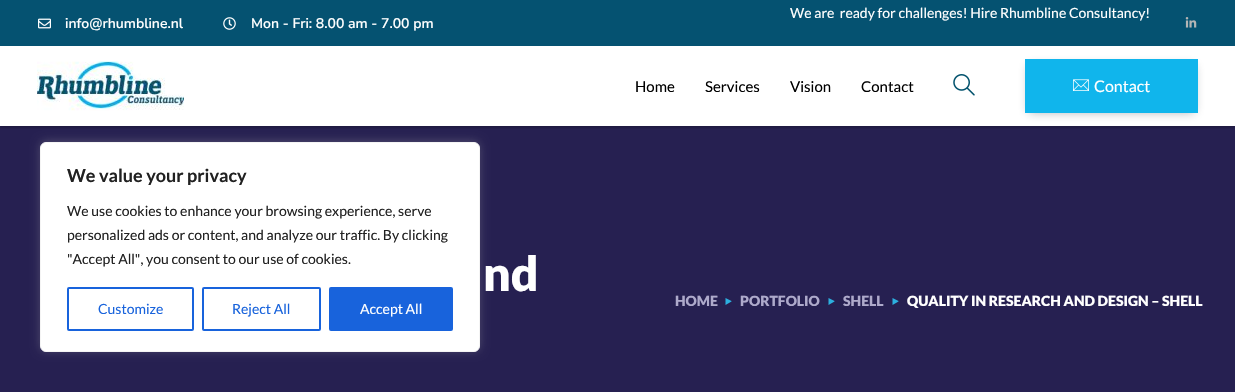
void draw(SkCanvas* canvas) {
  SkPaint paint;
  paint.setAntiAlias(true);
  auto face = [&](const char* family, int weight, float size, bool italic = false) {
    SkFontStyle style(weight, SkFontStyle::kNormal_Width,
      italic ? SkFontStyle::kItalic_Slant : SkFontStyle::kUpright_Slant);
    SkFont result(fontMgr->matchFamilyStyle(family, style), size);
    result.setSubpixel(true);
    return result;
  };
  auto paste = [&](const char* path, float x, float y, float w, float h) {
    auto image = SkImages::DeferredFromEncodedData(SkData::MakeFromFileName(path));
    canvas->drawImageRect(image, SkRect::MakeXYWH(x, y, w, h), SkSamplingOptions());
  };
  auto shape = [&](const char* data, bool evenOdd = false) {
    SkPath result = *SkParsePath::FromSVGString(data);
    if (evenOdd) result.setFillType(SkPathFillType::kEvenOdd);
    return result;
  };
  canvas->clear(0xffffffff);
  paint.setColor(0xff055271);
  canvas->drawRect(SkRect::MakeXYWH(0, 0, 1235, 46), paint);
  paste("img/1.png", 1185, 17, 12, 11);
  paste("img/2.png", 38, 18, 13, 11);
  paste("img/3.png", 223, 17, 13, 13);
  paint.setColor(0xff262051);
  canvas->drawRect(SkRect::MakeXYWH(0, 126, 1235, 266), paint);
  canvas->save();
  canvas->clipRect(SkRect::MakeXYWH(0, 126, 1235, 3));
  paint.setColor(0x33000000);
  paint.setMaskFilter(SkMaskFilter::MakeBlur(kNormal_SkBlurStyle, 1));
  canvas->drawRect(SkRect::MakeXYWH(0, 48, 1235, 80), paint);
  paint.setMaskFilter(nullptr);
  canvas->restore();
  paste("img/4.png", 37, 61, 147, 50);
  paste("img/5.png", 953, 74, 22, 22);
  paint.setColor(0x5e121d2d);
  paint.setMaskFilter(SkMaskFilter::MakeBlur(kNormal_SkBlurStyle, 5));
  canvas->drawRect(SkRect::MakeXYWH(1029, 66, 165, 46), paint);
  paint.setMaskFilter(nullptr);
  paint.setColor(0xff10b5ec);
  canvas->drawRect(SkRect::MakeXYWH(1025, 59, 173, 54), paint);
  paste("img/6.png", 1073, 79, 16, 12);
  paint.setColor(0xff2cb0e0);
  canvas->drawPath(shape("M731.5 301V301.5L725.5 305V298Z"), paint);
  canvas->drawPath(shape("M834.5 301V301.5L828.5 305V298Z"), paint);
  canvas->drawPath(shape("M898.5 301V301.5L892.5 305V298Z"), paint);
  paint.setColor(0x4dacabab);
  paint.setMaskFilter(SkMaskFilter::MakeBlur(kNormal_SkBlurStyle, 5));
  canvas->drawRoundRect(SkRect::MakeXYWH(40, 141, 440, 210), 6, 6, paint);
  paint.setMaskFilter(nullptr);
  paint.setColor(0xffffffff);
  canvas->drawRoundRect(SkRect::MakeXYWH(40.5f, 142.5f, 439, 209), 5.5f, 5.5f, paint);
  paint.setStroke(true);
  paint.setStrokeWidth(1);
  paint.setColor(0xfff4f4f4);
  canvas->drawRoundRect(SkRect::MakeXYWH(40.5f, 142.5f, 439, 209), 5.5f, 5.5f, paint);
  paint.setStrokeWidth(2);
  paint.setColor(0xff1863dc);
  canvas->drawRoundRect(SkRect::MakeXYWH(68, 288, 125, 42), 1, 1, paint);
  canvas->drawRoundRect(SkRect::MakeXYWH(203, 288, 117, 42), 1, 1, paint);
  paint.setStroke(false);
  canvas->drawRoundRect(SkRect::MakeXYWH(330, 288, 122, 42), 1, 1, paint);
  paint.setStroke(true);
  canvas->drawRoundRect(SkRect::MakeXYWH(330, 288, 122, 42), 1, 1, paint);
  auto f0 = face("Lato", 400, 14);
  paint.setStroke(false);
  paint.setColor(0xffffffff);
  canvas->drawString("We are  ready for challenges! Hire Rhumbline Consultancy!", 790, 18, f0, paint);
  auto f1 = face("Nunito Sans", 600, 14);
  canvas->drawString("info@rhumbline.nl", 65, 28, f1, paint);
  canvas->drawString("Mon - Fri: 8.00 am - 7.00 pm", 251, 28, f1, paint);
  auto f2 = face("Lato", 400, 15);
  paint.setColor(0xff000000);
  {
    const struct { const char* s; float x, y; } items[] = {
      {"Home", 635, 92},
      {"Services", 705, 92},
      {"Vision", 790, 92},
      {"Contact", 861, 92},
    };
    for (auto [s, x, y] : items) {
      canvas->drawString(s, x, y, f2, paint);
    }
  }
  auto f3 = face("Lato", 400, 16);
  paint.setColor(0xffffffff);
  canvas->drawString("Contact", 1094, 92, f3, paint);
  auto f4 = face("Lato", 900, 48);
  canvas->drawString("nd", 483, 291, f4, paint);
  auto f5 = face("Lato", 900, 14);
  paint.setColor(0xffaeaacb);
  {
    const struct { const char* s; float x, y; } items[] = {
      {"HOME", 675, 306},
      {"PORTFOLIO", 740, 306},
      {"SHELL", 843, 306},
    };
    for (auto [s, x, y] : items) {
      canvas->drawString(s, x, y, f5, paint);
    }
  }
  paint.setColor(0xffffffff);
  canvas->drawString("QUALITY IN RESEARCH AND DESIGN – SHELL", 907, 306, f5, paint);
  auto f6 = face("Lato", 700, 18);
  paint.setColor(0xff212121);
  canvas->drawString("We value your privacy", 67, 182, f6, paint);
  {
    const struct { const char* s; float x, y; } items[] = {
      {"We use cookies to enhance your browsing experience, serve", 67, 216},
      {"personalized ads or content, and analyze our traffic. By clicking", 67, 240},
      {"\"Accept All\", you consent to our use of cookies.", 67, 264},
    };
    for (auto [s, x, y] : items) {
      canvas->drawString(s, x, y, f0, paint);
    }
  }
  paint.setColor(0xff1863dc);
  canvas->drawString("Customize", 98, 314, f0, paint);
  canvas->drawString("Reject All", 232, 314, f0, paint);
  paint.setColor(0xffffffff);
  canvas->drawString("Accept All", 360, 314, f0, paint);
}
